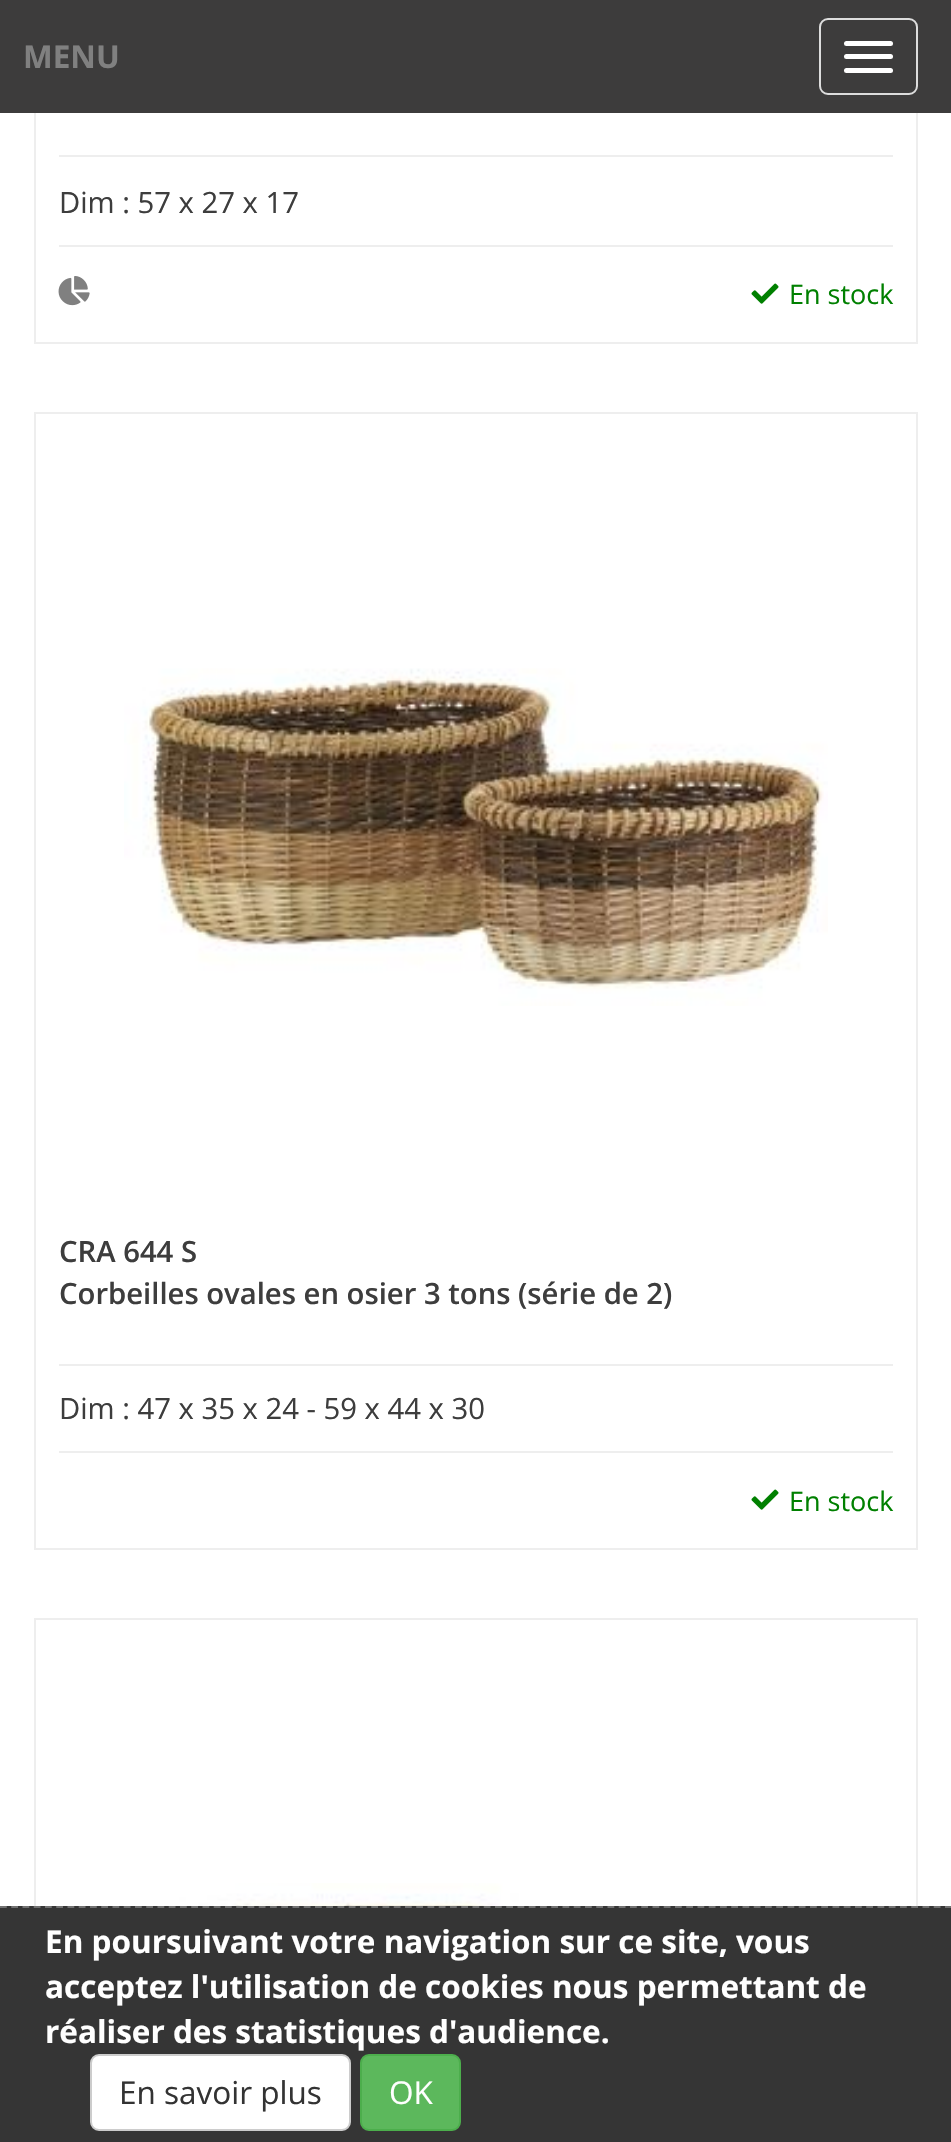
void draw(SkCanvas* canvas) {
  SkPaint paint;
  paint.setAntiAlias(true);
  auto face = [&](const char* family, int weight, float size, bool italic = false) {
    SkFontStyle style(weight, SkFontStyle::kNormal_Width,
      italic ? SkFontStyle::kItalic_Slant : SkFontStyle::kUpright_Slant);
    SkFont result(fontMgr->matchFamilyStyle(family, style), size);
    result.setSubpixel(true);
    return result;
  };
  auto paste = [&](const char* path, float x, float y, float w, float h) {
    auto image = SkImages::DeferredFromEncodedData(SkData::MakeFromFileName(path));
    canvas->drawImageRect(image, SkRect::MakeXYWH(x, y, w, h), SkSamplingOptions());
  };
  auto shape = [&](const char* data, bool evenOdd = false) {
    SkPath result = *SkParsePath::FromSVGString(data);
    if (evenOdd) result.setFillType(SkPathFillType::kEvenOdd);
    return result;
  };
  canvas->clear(0xffffffff);
  paint.setStroke(true);
  paint.setStrokeWidth(2);
  paint.setColor(0xffeeeeee);
  canvas->drawRect(SkRect::MakeXYWH(35, -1, 882, 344), paint);
  paint.setStroke(false);
  paint.setColor(0xff3d3c3c);
  canvas->drawRect(SkRect::MakeXYWH(0, 0, 951, 113), paint);
  paint.setStroke(true);
  paint.setColor(0xffdddddd);
  canvas->drawRoundRect(SkRect::MakeXYWH(820, 19, 97, 75), 8, 8, paint);
  paint.setStroke(false);
  paint.setColor(0xffffffff);
  canvas->drawRoundRect(SkRect::MakeXYWH(844, 41, 49, 5), 2.5f, 2.5f, paint);
  canvas->drawRoundRect(SkRect::MakeXYWH(844, 54, 49, 5), 2.5f, 2.5f, paint);
  canvas->drawRoundRect(SkRect::MakeXYWH(844, 68, 49, 5), 2.5f, 2.5f, paint);
  paint.setColor(0xffeeeeee);
  canvas->drawRect(SkRect::MakeXYWH(59, 155, 834, 2), paint);
  canvas->drawRect(SkRect::MakeXYWH(59, 245, 834, 2), paint);
  paste("img/1.png", 58, 276, 32, 30);
  paste("img/2.png", 751, 283, 28, 21);
  paint.setStroke(true);
  canvas->drawRect(SkRect::MakeXYWH(35, 413, 882, 1136), paint);
  paste("img/3.png", 124, 668, 704, 338);
  paint.setStroke(false);
  canvas->drawRect(SkRect::MakeXYWH(59, 1364, 834, 2), paint);
  canvas->drawRect(SkRect::MakeXYWH(59, 1451, 834, 2), paint);
  paste("img/2.png", 751, 1489, 28, 21);
  paint.setStroke(true);
  canvas->drawRect(SkRect::MakeXYWH(35, 1619, 882, 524), paint);
  paste("img/4.png", 124, 1883, 704, 23);
  paint.setStroke(false);
  paint.setColor(0xff353535);
  canvas->drawRect(SkRect::MakeXYWH(0, 1906, 951, 236), paint);
  paint.setStroke(true);
  paint.setStrokeWidth(2.2f);
  paint.setColor(0xff727272);
  paint.setPathEffect(SkDashPathEffect::Make({{6.75f, 4.5f}}, 0));
  canvas->drawPath(shape("M0 1907H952"), paint);
  paint.setPathEffect(nullptr);
  paint.setStroke(false);
  paint.setColor(0xffffffff);
  canvas->drawRoundRect(SkRect::MakeXYWH(91, 2055, 259, 75), 8, 8, paint);
  paint.setStroke(true);
  paint.setStrokeWidth(2);
  paint.setColor(0xffcccccc);
  canvas->drawRoundRect(SkRect::MakeXYWH(91, 2055, 259, 75), 8, 8, paint);
  paint.setStroke(false);
  paint.setColor(0xff5cb85c);
  canvas->drawRoundRect(SkRect::MakeXYWH(361, 2055, 99, 75), 8, 8, paint);
  paint.setStroke(true);
  paint.setColor(0xff4cae4c);
  canvas->drawRoundRect(SkRect::MakeXYWH(361, 2055, 99, 75), 8, 8, paint);
  auto f0 = face("Open Sans", 700, 31.5f);
  paint.setStroke(false);
  paint.setColor(0xff808080);
  canvas->drawString("MENU", 23, 68, f0, paint);
  auto f1 = face("Open Sans", 400, 29.25f);
  paint.setColor(0xff3d3d3d);
  canvas->drawString("Dim : 57 x 27 x 17", 59, 213, f1, paint);
  auto f2 = face("Open Sans", 400, 27);
  paint.setColor(0xff008000);
  canvas->drawString("En stock", 789, 304, f2, paint);
  auto f3 = face("Open Sans", 600, 29.25f);
  paint.setColor(0xff3d3d3d);
  canvas->drawString("CRA 644 S", 59, 1262, f3, paint);
  canvas->drawString("Corbeilles ovales en osier 3 tons (série de 2)", 59, 1304, f3, paint);
  canvas->drawString("Dim : 47 x 35 x 24 - 59 x 44 x 30", 59, 1419, f1, paint);
  paint.setColor(0xff008000);
  canvas->drawString("En stock", 789, 1511, f2, paint);
  paint.setColor(0xffffffff);
  {
    const struct { const char* s; float x, y; } items[] = {
      {"En poursuivant votre navigation sur ce site, vous", 45, 1953},
      {"acceptez l'utilisation de cookies nous permettant de", 45, 1998},
      {"réaliser des statistiques d'audience.", 45, 2043},
    };
    for (auto [s, x, y] : items) {
      canvas->drawString(s, x, y, f0, paint);
    }
  }
  auto f4 = face("Open Sans", 400, 31.5f);
  paint.setColor(0xff333333);
  canvas->drawString("En savoir plus", 119, 2104, f4, paint);
  paint.setColor(0xffffffff);
  canvas->drawString("OK", 389, 2104, f4, paint);
}
